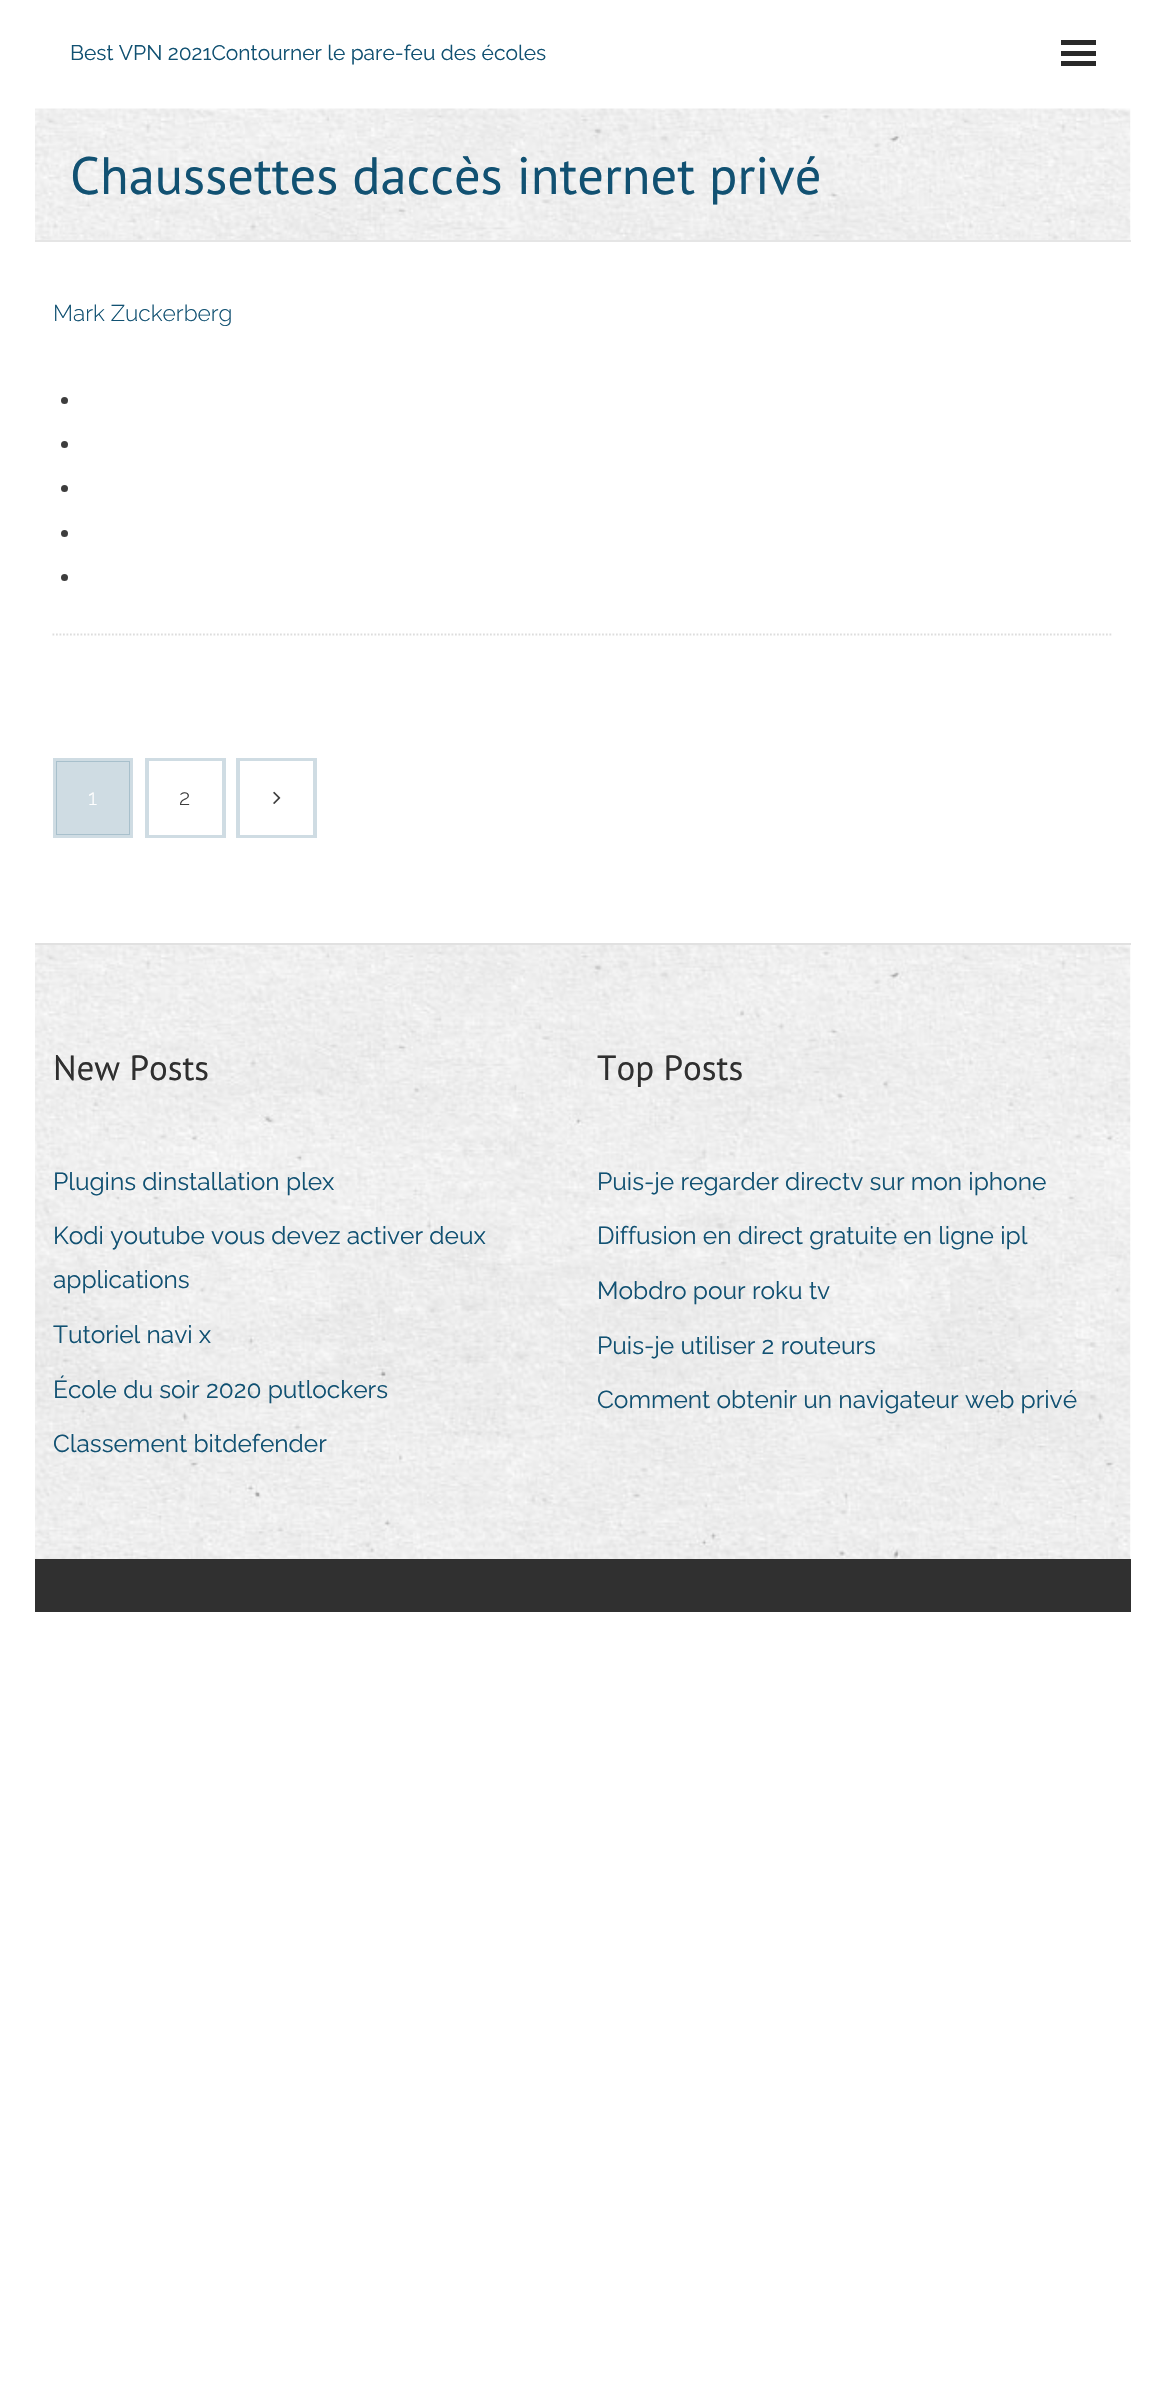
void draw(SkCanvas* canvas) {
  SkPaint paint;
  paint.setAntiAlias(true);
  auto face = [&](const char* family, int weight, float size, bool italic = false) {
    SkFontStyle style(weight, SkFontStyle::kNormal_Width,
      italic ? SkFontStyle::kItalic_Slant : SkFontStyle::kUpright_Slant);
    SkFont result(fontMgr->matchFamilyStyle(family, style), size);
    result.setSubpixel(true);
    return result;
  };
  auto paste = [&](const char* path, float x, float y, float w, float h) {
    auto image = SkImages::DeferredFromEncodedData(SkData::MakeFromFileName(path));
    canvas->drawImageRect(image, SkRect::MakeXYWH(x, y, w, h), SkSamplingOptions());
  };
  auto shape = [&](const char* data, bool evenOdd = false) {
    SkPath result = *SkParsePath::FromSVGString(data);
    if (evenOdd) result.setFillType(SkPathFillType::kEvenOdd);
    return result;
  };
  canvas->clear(0xffffffff);
  {
    const struct { float x, y, w, h; SkColor color; } items[] = {
      {1061, 40, 35, 5, 0xff292929},
      {1061, 51, 35, 5, 0xff292929},
      {1061, 61, 35, 5, 0xff292929},
    };
    for (auto [x, y, w, h, color] : items) {
      paint.setColor(color);
      canvas->drawRect(SkRect::MakeXYWH(x, y, w, h), paint);
    }
  }
  paste("img/1.png", 35, 108, 1096, 132);
  paint.setColor(0xffe5e5e5);
  canvas->drawRect(SkRect::MakeXYWH(35, 240, 1096, 2), paint);
  paint.setStroke(true);
  paint.setStrokeWidth(1.8f);
  paint.setColor(0xffdddddd);
  paint.setPathEffect(SkDashPathEffect::Make({{1.75f, 1.75f}}, 0));
  canvas->drawPath(shape("M52.5 634.5H1113"), paint);
  paint.setPathEffect(nullptr);
  paint.setStroke(false);
  paint.setColor(0xff3d3d3d);
  canvas->drawCircle(64.5f, 400.5f, 3.5f, paint);
  canvas->drawCircle(64.5f, 444.5f, 3.5f, paint);
  canvas->drawCircle(64.5f, 488.5f, 3.5f, paint);
  canvas->drawCircle(64.5f, 533.5f, 3.5f, paint);
  canvas->drawCircle(64.5f, 577.5f, 3.5f, paint);
  paint.setStroke(true);
  paint.setStrokeWidth(4);
  paint.setColor(0xffcfdce3);
  canvas->drawRect(SkRect::MakeXYWH(55, 760, 76, 76), paint);
  paint.setStroke(false);
  paint.setColor(0x33115172);
  canvas->drawRect(SkRect::MakeXYWH(56, 761, 74, 74), paint);
  paint.setStroke(true);
  paint.setColor(0xffcfdce3);
  canvas->drawRect(SkRect::MakeXYWH(147, 760, 77, 76), paint);
  paint.setStroke(false);
  paint.setColor(0xffffffff);
  canvas->drawRect(SkRect::MakeXYWH(149, 761, 73, 74), paint);
  paint.setStroke(true);
  paint.setColor(0xffcfdce3);
  canvas->drawRect(SkRect::MakeXYWH(238, 760, 77, 76), paint);
  paint.setStroke(false);
  paint.setColor(0xffffffff);
  canvas->drawRect(SkRect::MakeXYWH(240, 761, 73, 74), paint);
  paste("img/2.png", 273, 791, 8, 13);
  paste("img/3.png", 35, 945, 1096, 614);
  paint.setColor(0xffe1e1e1);
  canvas->drawRect(SkRect::MakeXYWH(35, 943, 1096, 2), paint);
  paint.setColor(0xff303030);
  canvas->drawRect(SkRect::MakeXYWH(35, 1559, 1096, 53), paint);
  auto f0 = face("Raleway", 400, 21);
  paint.setColor(0xff115172);
  canvas->drawString("Best VPN 2021Contourner le pare-feu des écoles", 70, 60, f0, paint);
  auto f1 = face("PT Sans", 400, 52.5f);
  canvas->drawString("Chaussettes daccès internet privé", 70, 194, f1, paint);
  auto f2 = face("Raleway", 300, 22.75f);
  canvas->drawString("Mark Zuckerberg", 53, 321, f2, paint);
  auto f3 = face("Raleway", 300, 22);
  paint.setColor(0xffffffff);
  canvas->drawString("1", 88, 805, f3, paint);
  paint.setColor(0xff3d3d3d);
  canvas->drawString("2", 179, 805, f3, paint);
  auto f4 = face("PT Sans", 400, 35);
  paint.setColor(0xff2f2f2f);
  canvas->drawString("New Posts", 53, 1080, f4, paint);
  auto f5 = face("Raleway", 400, 24.5f);
  paint.setColor(0xff115172);
  {
    const struct { const char* s; float x, y; } items[] = {
      {"Plugins dinstallation plex", 53, 1190},
      {"Kodi youtube vous devez activer deux", 53, 1244},
      {"applications", 53, 1288},
      {"Tutoriel navi x", 53, 1343},
      {"École du soir 2020 putlockers", 53, 1398},
      {"Classement bitdefender", 53, 1452},
    };
    for (auto [s, x, y] : items) {
      canvas->drawString(s, x, y, f5, paint);
    }
  }
  paint.setColor(0xff2f2f2f);
  canvas->drawString("Top Posts", 597, 1080, f4, paint);
  paint.setColor(0xff115172);
  {
    const struct { const char* s; float x, y; } items[] = {
      {"Puis-je regarder directv sur mon iphone", 597, 1190},
      {"Diffusion en direct gratuite en ligne ipl", 597, 1244},
      {"Mobdro pour roku tv", 597, 1299},
      {"Puis-je utiliser 2 routeurs", 597, 1354},
      {"Comment obtenir un navigateur web privé", 597, 1408},
    };
    for (auto [s, x, y] : items) {
      canvas->drawString(s, x, y, f5, paint);
    }
  }
}
